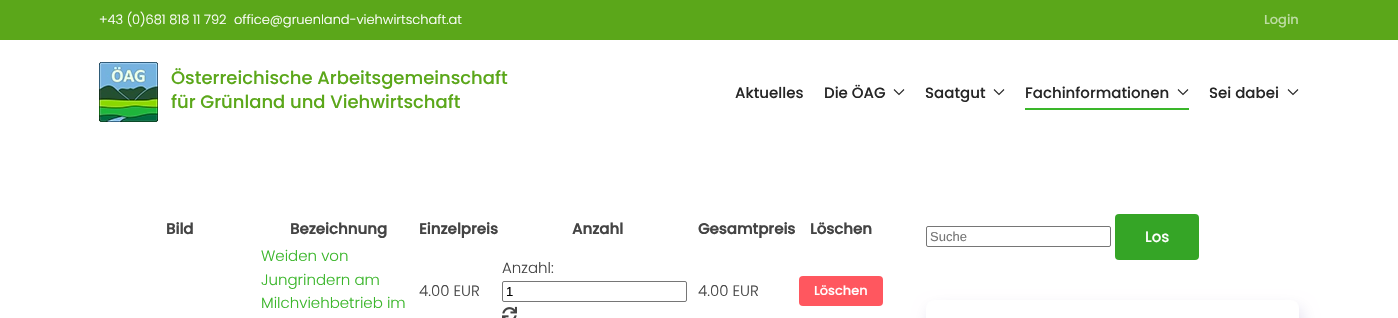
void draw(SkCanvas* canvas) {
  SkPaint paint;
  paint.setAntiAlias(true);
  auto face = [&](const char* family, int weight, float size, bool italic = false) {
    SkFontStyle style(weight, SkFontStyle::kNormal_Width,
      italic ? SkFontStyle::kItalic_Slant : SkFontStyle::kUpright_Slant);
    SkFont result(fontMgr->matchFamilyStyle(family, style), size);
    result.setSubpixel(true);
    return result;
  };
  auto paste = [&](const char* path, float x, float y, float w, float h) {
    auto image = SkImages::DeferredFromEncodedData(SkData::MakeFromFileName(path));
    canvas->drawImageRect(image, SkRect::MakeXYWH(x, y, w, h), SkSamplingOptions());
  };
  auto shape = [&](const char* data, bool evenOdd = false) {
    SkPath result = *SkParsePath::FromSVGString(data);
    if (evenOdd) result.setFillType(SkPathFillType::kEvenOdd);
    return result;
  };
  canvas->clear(0xffffffff);
  paint.setColor(0xff5ba71a);
  canvas->drawRect(SkRect::MakeXYWH(0, 0, 1398, 40), paint);
  paste("img/1.png", 99, 62, 59, 60);
  paint.setStroke(true);
  paint.setStrokeWidth(1.1f);
  paint.setColor(0xff262626);
  canvas->drawPath(shape("M894 89.5L899 94.5L904 89.5"), paint);
  canvas->drawPath(shape("M994 89.5L999 94.5L1004 89.5"), paint);
  canvas->drawPath(shape("M1178 89.5L1183 94.5L1188 89.5"), paint);
  paint.setStroke(false);
  paint.setColor(0xff3ab62a);
  canvas->drawRect(SkRect::MakeXYWH(1025, 108, 164, 2), paint);
  paint.setStroke(true);
  paint.setColor(0xff262626);
  canvas->drawPath(shape("M1288 89.5L1293 94.5L1298 89.5"), paint);
  paint.setStrokeWidth(1);
  paint.setColor(0xff767676);
  canvas->drawRoundRect(SkRect::MakeXYWH(502.5f, 281.5f, 184, 20), 1.5f, 1.5f, paint);
  paste("img/2.png", 502, 306, 15, 12);
  paint.setStroke(false);
  paint.setColor(0xffff575f);
  canvas->drawRoundRect(SkRect::MakeXYWH(799, 276, 84, 30), 4, 4, paint);
  paint.setStroke(true);
  paint.setColor(0xff767676);
  canvas->drawRoundRect(SkRect::MakeXYWH(926.5f, 226.5f, 184, 20), 1.5f, 1.5f, paint);
  paint.setStroke(false);
  paint.setColor(0xff35a526);
  canvas->drawRoundRect(SkRect::MakeXYWH(1115, 214, 84, 46), 4, 4, paint);
  paint.setColor(0x1f170076);
  paint.setMaskFilter(SkMaskFilter::MakeBlur(kNormal_SkBlurStyle, 8));
  canvas->drawRoundRect(SkRect::MakeXYWH(929, 308, 373, 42), 8, 8, paint);
  paint.setMaskFilter(nullptr);
  paint.setColor(0xffffffff);
  canvas->drawRoundRect(SkRect::MakeXYWH(926, 300, 373, 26), 8, 8, paint);
  auto f0 = face("Poppins", 300, 13);
  canvas->drawString("+43 (0)681 818 11 792", 99, 24, f0, paint);
  canvas->drawString("office@gruenland-viehwirtschaft.at", 234, 24, f0, paint);
  auto f1 = face("Poppins", 500, 13);
  paint.setColor(0xffbddca3);
  canvas->drawString("Login", 1264, 24, f1, paint);
  auto f2 = face("Poppins", 500, 18);
  paint.setColor(0xff5ba71a);
  canvas->drawString("Österreichische Arbeitsgemeinschaft", 171, 84, f2, paint);
  canvas->drawString("für Grünland und Viehwirtschaft", 171, 108, f2, paint);
  auto f3 = face("Poppins", 500, 15);
  paint.setColor(0xff262626);
  {
    const struct { const char* s; float x, y; } items[] = {
      {"Aktuelles", 735, 98},
      {"Die ÖAG", 824, 98},
      {"Saatgut", 925, 98},
      {"Fachinformationen", 1025, 98},
      {"Sei dabei", 1209, 98},
    };
    for (auto [s, x, y] : items) {
      canvas->drawString(s, x, y, f3, paint);
    }
  }
  auto f4 = face("Poppins", 700, 15);
  paint.setColor(0xff444444);
  {
    const struct { const char* s; float x, y; } items[] = {
      {"Bild", 166, 234},
      {"Bezeichnung", 290, 234},
      {"Einzelpreis", 419, 234},
      {"Anzahl", 572, 234},
      {"Gesamtpreis", 698, 234},
      {"Löschen", 810, 234},
    };
    for (auto [s, x, y] : items) {
      canvas->drawString(s, x, y, f4, paint);
    }
  }
  auto f5 = face("Poppins", 300, 15);
  paint.setColor(0xff3ab62a);
  {
    const struct { const char* s; float x, y; } items[] = {
      {"Weiden von", 261, 261},
      {"Jungrindern am", 261, 285},
      {"Milchviehbetrieb im", 261, 308},
    };
    for (auto [s, x, y] : items) {
      canvas->drawString(s, x, y, f5, paint);
    }
  }
  paint.setColor(0xff444444);
  canvas->drawString("4.00 EUR", 419, 296, f5, paint);
  canvas->drawString("Anzahl:", 502, 273, f5, paint);
  auto f6 = face("Liberation Sans", 400, 13);
  paint.setColor(0xff000000);
  canvas->drawString("1", 506, 296, f6, paint);
  paint.setColor(0xff444444);
  canvas->drawString("4.00 EUR", 698, 296, f5, paint);
  paint.setColor(0xffffffff);
  canvas->drawString("Löschen", 814, 295, f1, paint);
  paint.setColor(0xff757575);
  canvas->drawString("Suche", 930, 241, f6, paint);
  paint.setColor(0xffffffff);
  canvas->drawString("Los", 1145, 242, f3, paint);
}
